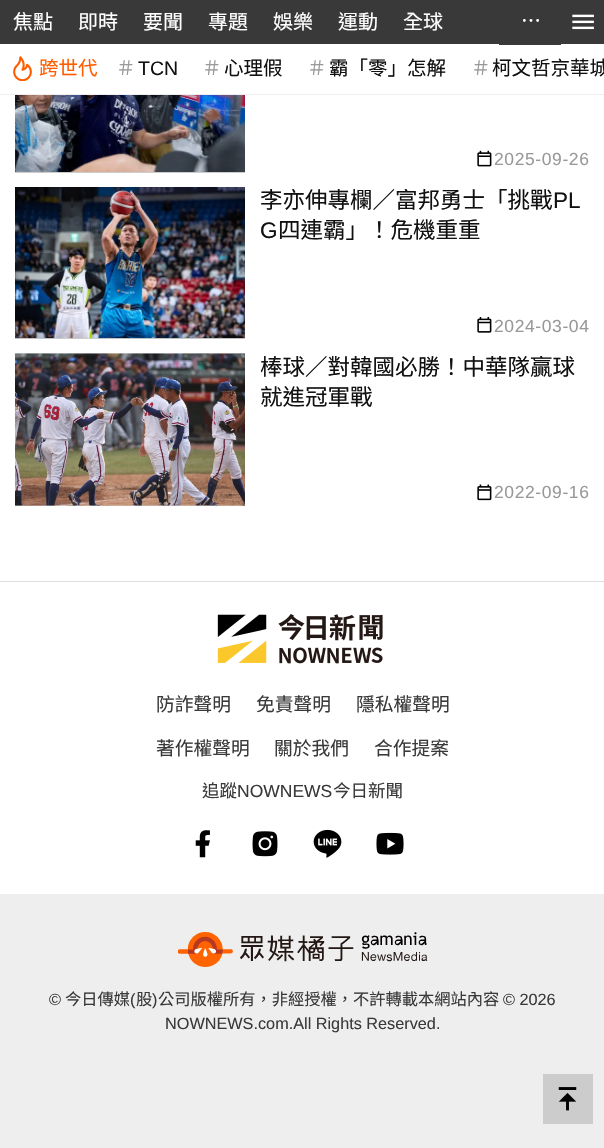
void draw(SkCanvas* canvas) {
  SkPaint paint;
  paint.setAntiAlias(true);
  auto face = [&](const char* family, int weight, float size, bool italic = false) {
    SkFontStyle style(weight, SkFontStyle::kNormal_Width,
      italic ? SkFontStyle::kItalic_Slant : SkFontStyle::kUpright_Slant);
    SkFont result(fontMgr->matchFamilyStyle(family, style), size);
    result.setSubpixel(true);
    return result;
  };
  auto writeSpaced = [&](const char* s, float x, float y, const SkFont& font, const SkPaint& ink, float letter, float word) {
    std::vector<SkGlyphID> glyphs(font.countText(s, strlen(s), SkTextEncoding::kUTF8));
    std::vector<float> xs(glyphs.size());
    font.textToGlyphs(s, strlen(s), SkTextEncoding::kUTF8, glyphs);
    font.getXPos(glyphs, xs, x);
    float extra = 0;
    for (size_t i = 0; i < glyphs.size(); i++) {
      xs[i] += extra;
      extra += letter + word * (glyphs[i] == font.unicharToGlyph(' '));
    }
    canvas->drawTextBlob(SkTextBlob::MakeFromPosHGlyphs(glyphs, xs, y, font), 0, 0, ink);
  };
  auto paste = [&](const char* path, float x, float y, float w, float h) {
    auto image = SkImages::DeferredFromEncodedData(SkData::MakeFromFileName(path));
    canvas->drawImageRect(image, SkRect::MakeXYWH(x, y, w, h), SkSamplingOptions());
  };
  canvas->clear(0xffffffff);
  paint.setColor(0xff393939);
  canvas->drawRect(SkRect::MakeXYWH(0, 0, 604, 44), paint);
  canvas->drawRect(SkRect::MakeXYWH(499, 44, 62, 1), paint);
  paste("img/1.png", 572, 14, 22, 16);
  paint.setColor(0xffeeeeee);
  canvas->drawRect(SkRect::MakeXYWH(0, 94, 604, 1), paint);
  paste("img/2.png", 13, 56, 19, 25);
  paint.setColor(0xffcccccc);
  canvas->drawRect(SkRect::MakeXYWH(15, 172, 230, 1), paint);
  paste("img/3.png", 15, 95, 230, 77);
  paste("img/4.png", 477, 150, 15, 17);
  canvas->drawRect(SkRect::MakeXYWH(15, 338, 230, 1), paint);
  paste("img/5.png", 15, 187, 230, 152);
  paste("img/6.png", 477, 317, 15, 16);
  canvas->drawRect(SkRect::MakeXYWH(15, 505, 230, 1), paint);
  paste("img/7.png", 15, 353, 230, 153);
  paste("img/8.png", 477, 484, 15, 17);
  paint.setColor(0xffdddddd);
  canvas->drawRect(SkRect::MakeXYWH(0, 581, 604, 1), paint);
  paste("img/9.png", 217, 614, 166, 50);
  paste("img/10.png", 195, 830, 15, 28);
  paste("img/11.png", 252, 831, 26, 26);
  paste("img/12.png", 313, 829, 29, 29);
  paste("img/13.png", 376, 832, 28, 23);
  paint.setColor(0xffeeeeee);
  canvas->drawRect(SkRect::MakeXYWH(0, 894, 604, 254), paint);
  paste("img/14.png", 178, 932, 250, 35);
  paint.setColor(0xffcccccc);
  canvas->drawRect(SkRect::MakeXYWH(543, 1074, 50, 50), paint);
  paste("img/15.png", 558, 1087, 19, 24);
  auto f0 = face("Noto Sans CJK TC", 400, 20);
  paint.setColor(0xffffffff);
  {
    const struct { const char* s; float x, y; } items[] = {
      {"焦點", 13, 29},
      {"即時", 78, 29},
      {"要聞", 143, 29},
      {"專題", 208, 29},
      {"娛樂", 273, 29},
      {"運動", 338, 29},
      {"全球", 403, 29},
      {"⋯", 521, 28},
    };
    for (auto [s, x, y] : items) {
      canvas->drawString(s, x, y, f0, paint);
    }
  }
  auto f1 = face("Noto Sans CJK TC", 400, 19.5f);
  paint.setColor(0xffff5c00);
  canvas->drawString("跨世代", 39, 75, f1, paint);
  paint.setColor(0xff999999);
  canvas->drawString("＃", 116, 75, f1, paint);
  auto f2 = face("Liberation Sans", 400, 19.5f);
  paint.setColor(0xff111111);
  canvas->drawString("TCN", 138, 75, f2, paint);
  paint.setColor(0xff999999);
  canvas->drawString("＃", 202, 75, f1, paint);
  paint.setColor(0xff111111);
  canvas->drawString("心理假", 224, 75, f1, paint);
  paint.setColor(0xff999999);
  canvas->drawString("＃", 307, 75, f1, paint);
  paint.setColor(0xff111111);
  canvas->drawString("霸「零」怎解", 329, 75, f1, paint);
  paint.setColor(0xff999999);
  canvas->drawString("＃", 471, 75, f1, paint);
  paint.setColor(0xff111111);
  canvas->drawString("柯文哲京華城", 492, 75, f1, paint);
  auto f3 = face("Liberation Sans", 400, 17.5f);
  paint.setColor(0xff999999);
  writeSpaced("2025-09-26", 494, 165, f3, paint, 0.6f, 0);
  auto f4 = face("Noto Sans CJK TC", 400, 22.5f);
  paint.setColor(0xff111111);
  canvas->drawString("李亦伸專欄／富邦勇士「挑戰", 260, 208, f4, paint);
  auto f5 = face("Liberation Sans", 400, 22.5f);
  canvas->drawString("PL", 553, 208, f5, paint);
  canvas->drawString("G", 260, 238, f5, paint);
  canvas->drawString("四連霸」！危機重重", 278, 238, f4, paint);
  paint.setColor(0xff999999);
  writeSpaced("2024-03-04", 494, 332, f3, paint, 0.6f, 0);
  paint.setColor(0xff111111);
  canvas->drawString("棒球／對韓國必勝！中華隊贏球", 260, 375, f4, paint);
  canvas->drawString("就進冠軍戰", 260, 405, f4, paint);
  paint.setColor(0xff999999);
  writeSpaced("2022-09-16", 494, 498, f3, paint, 0.6f, 0);
  auto f6 = face("Noto Sans CJK TC", 400, 18.75f);
  paint.setColor(0xff393939);
  {
    const struct { const char* s; float x, y; } items[] = {
      {"防詐聲明", 156, 711},
      {"免責聲明", 256, 711},
      {"隱私權聲明", 356, 711},
      {"著作權聲明", 156, 755},
      {"關於我們", 274, 755},
      {"合作提案", 374, 755},
    };
    for (auto [s, x, y] : items) {
      canvas->drawString(s, x, y, f6, paint);
    }
  }
  auto f7 = face("Noto Sans CJK TC", 400, 17.5f);
  canvas->drawString("追蹤", 202, 797, f7, paint);
  canvas->drawString("NOWNEWS", 237, 797, f3, paint);
  canvas->drawString("今日新聞", 333, 797, f7, paint);
  auto f8 = face("Liberation Sans", 400, 16.25f);
  canvas->drawString("©", 49, 1005, f8, paint);
  auto f9 = face("Noto Sans CJK TC", 400, 16.25f);
  canvas->drawString("今日傳媒", 65, 1005, f9, paint);
  canvas->drawString("(", 130, 1005, f8, paint);
  canvas->drawString("股", 136, 1005, f9, paint);
  canvas->drawString(")", 152, 1005, f8, paint);
  canvas->drawString("公司版權所有，非經授權，不許轉載本網站內容", 158, 1005, f9, paint);
  canvas->drawString("© 2026", 503, 1005, f8, paint);
  canvas->drawString("NOWNEWS.com.All Rights Reserved.", 165, 1029, f8, paint);
}
